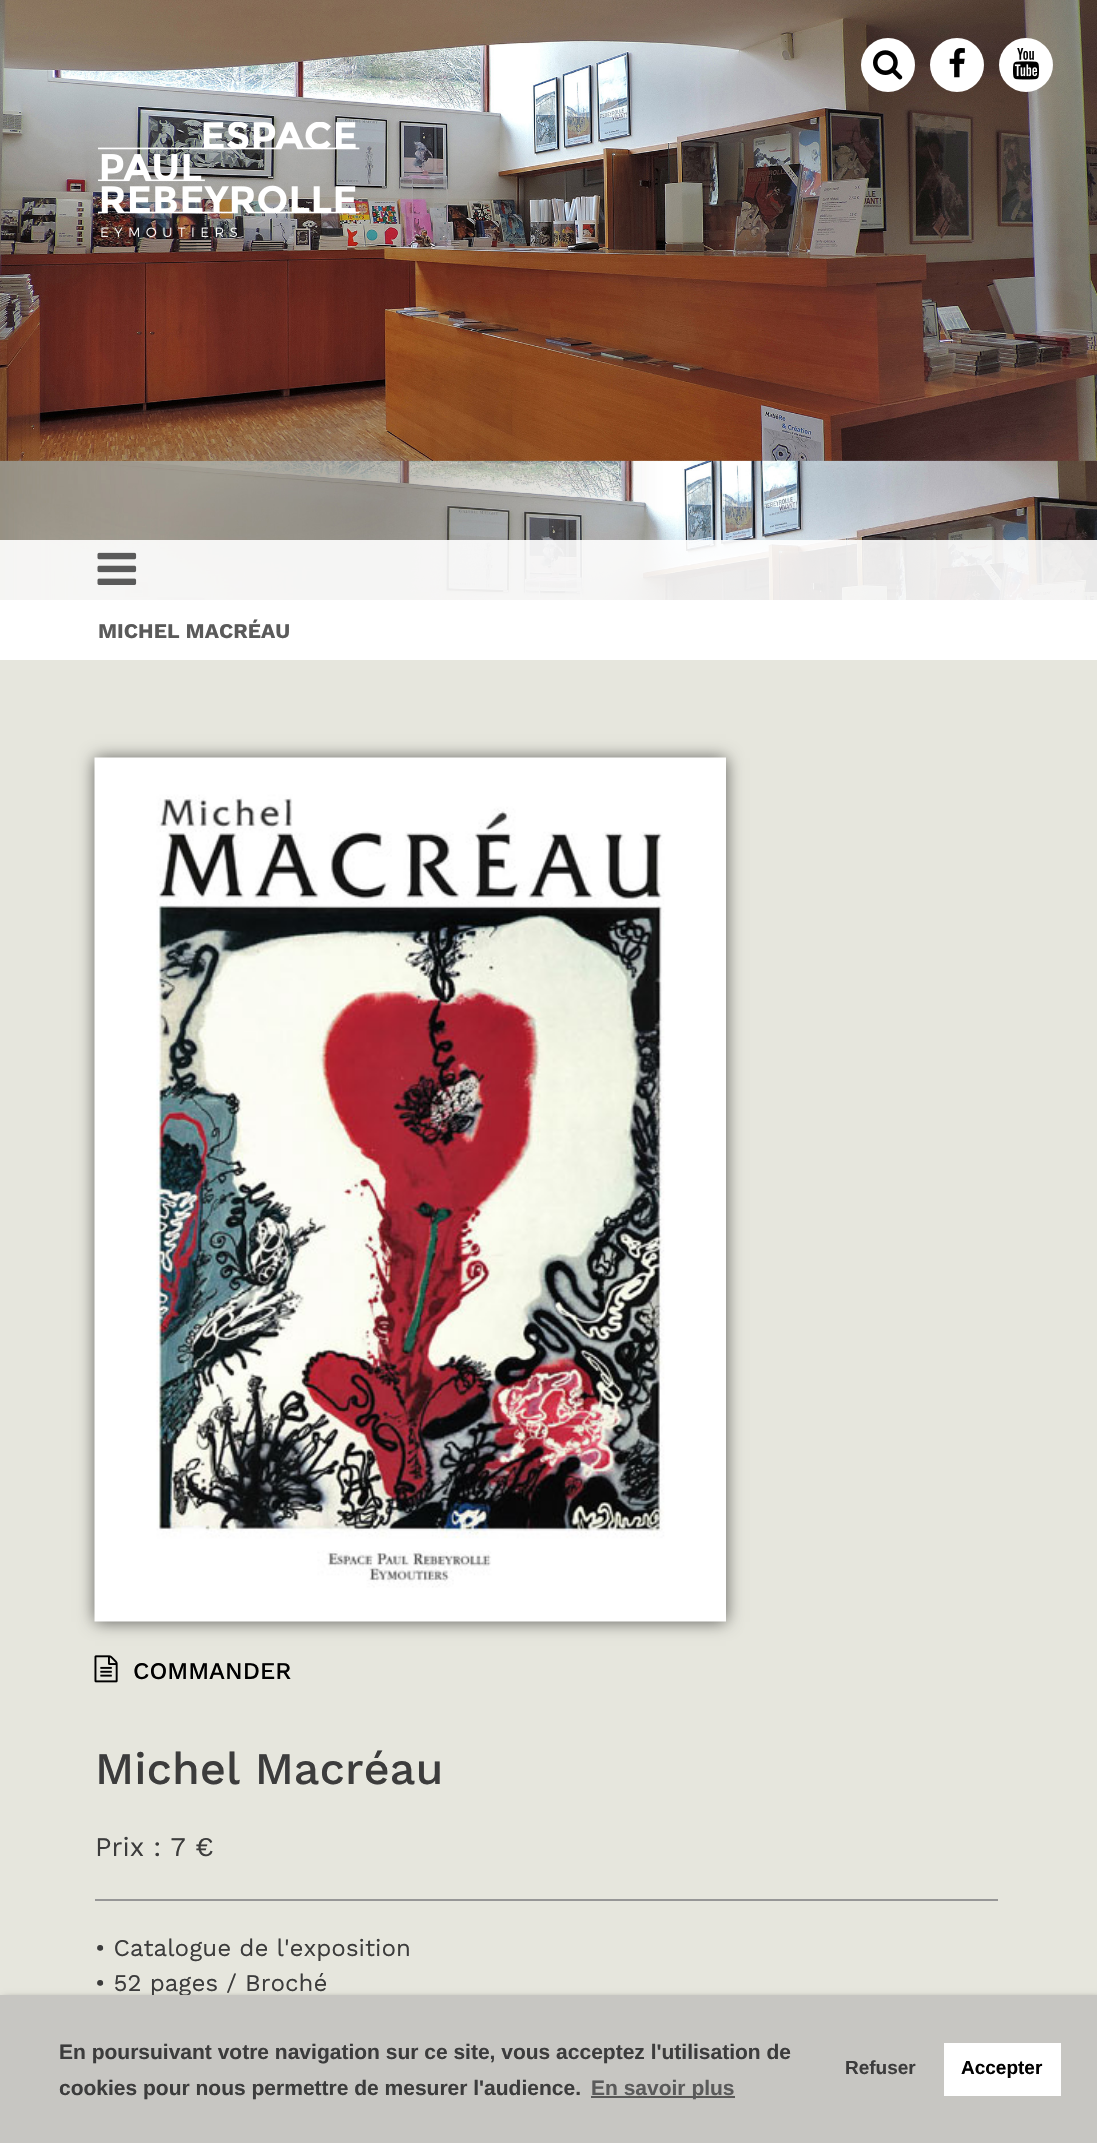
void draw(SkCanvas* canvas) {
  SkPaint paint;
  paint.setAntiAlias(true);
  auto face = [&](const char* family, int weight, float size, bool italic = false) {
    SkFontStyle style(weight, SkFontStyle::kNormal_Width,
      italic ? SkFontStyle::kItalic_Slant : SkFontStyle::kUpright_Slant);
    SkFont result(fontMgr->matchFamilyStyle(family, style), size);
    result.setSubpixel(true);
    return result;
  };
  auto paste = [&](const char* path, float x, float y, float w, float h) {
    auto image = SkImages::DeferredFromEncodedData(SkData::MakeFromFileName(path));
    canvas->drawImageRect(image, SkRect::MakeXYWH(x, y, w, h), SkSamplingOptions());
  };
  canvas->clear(0xffffffff);
  paste("img/1.png", 0, 0, 1097, 600);
  paint.setColor(0xffffffff);
  canvas->drawCircle(888, 65, 27, paint);
  paste("img/2.png", 873, 50, 30, 30);
  canvas->drawCircle(957, 65, 27, paint);
  paste("img/3.png", 949, 48, 16, 30);
  canvas->drawCircle(1026, 65, 27, paint);
  paste("img/4.png", 1013, 48, 26, 32);
  paste("img/5.png", 98, 122, 262, 115);
  paint.setColor(0xe6ffffff);
  canvas->drawRect(SkRect::MakeXYWH(0, 540, 1097, 60), paint);
  paste("img/6.png", 97, 552, 40, 33);
  paint.setColor(0xffe6e6dd);
  canvas->drawRect(SkRect::MakeXYWH(0, 660, 1097, 1335), paint);
  paint.setColor(0x99000000);
  paint.setMaskFilter(SkMaskFilter::MakeBlur(kNormal_SkBlurStyle, 8));
  canvas->drawRect(SkRect::MakeXYWH(95, 758, 631, 864), paint);
  paint.setMaskFilter(nullptr);
  paste("img/7.png", 94, 757, 632, 865);
  paste("img/8.png", 94, 1655, 24, 28);
  paint.setColor(0xff969696);
  canvas->drawRect(SkRect::MakeXYWH(95, 1899, 903, 2), paint);
  paint.setColor(0xbf000000);
  paint.setMaskFilter(SkMaskFilter::MakeBlur(kNormal_SkBlurStyle, 4));
  canvas->drawRect(SkRect::MakeXYWH(3, 2000, 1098, 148), paint);
  paint.setMaskFilter(nullptr);
  auto f0 = face("Work Sans", 700, 21);
  paint.setColor(0xff5a5a5a);
  canvas->drawString("MICHEL MACRÉAU", 98, 638, f0, paint);
  auto f1 = face("Work Sans", 500, 24);
  paint.setColor(0xff000000);
  canvas->drawString("COMMANDER", 133, 1679, f1, paint);
  auto f2 = face("Work Sans", 500, 45);
  paint.setColor(0xff3c3c3c);
  canvas->drawString("Michel Macréau", 95, 1784, f2, paint);
  auto f3 = face("Work Sans", 400, 27);
  canvas->drawString("Prix : 7 €", 95, 1856, f3, paint);
  auto f4 = face("Work Sans", 400, 24);
  canvas->drawString("• Catalogue de l'exposition", 95, 1956, f4, paint);
  canvas->drawString("• 52 pages / Broché", 95, 1991, f4, paint);
  paint.setColor(0xffc7c6c2);
  canvas->drawRect(SkRect::MakeXYWH(0, 1995, 1097, 148), paint);
  auto f5 = face("Liberation Sans", 700, 21);
  paint.setColor(0xff3c3c3c);
  canvas->drawString("En poursuivant votre navigation sur ce site, vous acceptez l'utilisation de", 59, 2059, f5, paint);
  canvas->drawString("cookies pour nous permettre de mesurer l'audience.", 59, 2095, f5, paint);
  paint.setColor(0xff585857);
  canvas->drawRect(SkRect::MakeXYWH(591, 2096, 144, 2), paint);
  paint.setColor(0xff5a5a5a);
  canvas->drawString("En savoir plus", 591, 2095, f5, paint);
  auto f6 = face("Liberation Sans", 700, 19);
  paint.setColor(0xff3c3c3c);
  canvas->drawString("Refuser", 845, 2074, f6, paint);
  paint.setColor(0xffffffff);
  canvas->drawRect(SkRect::MakeXYWH(944, 2043, 117, 53), paint);
  paint.setColor(0xff000000);
  canvas->drawString("Accepter", 961, 2074, f6, paint);
}
